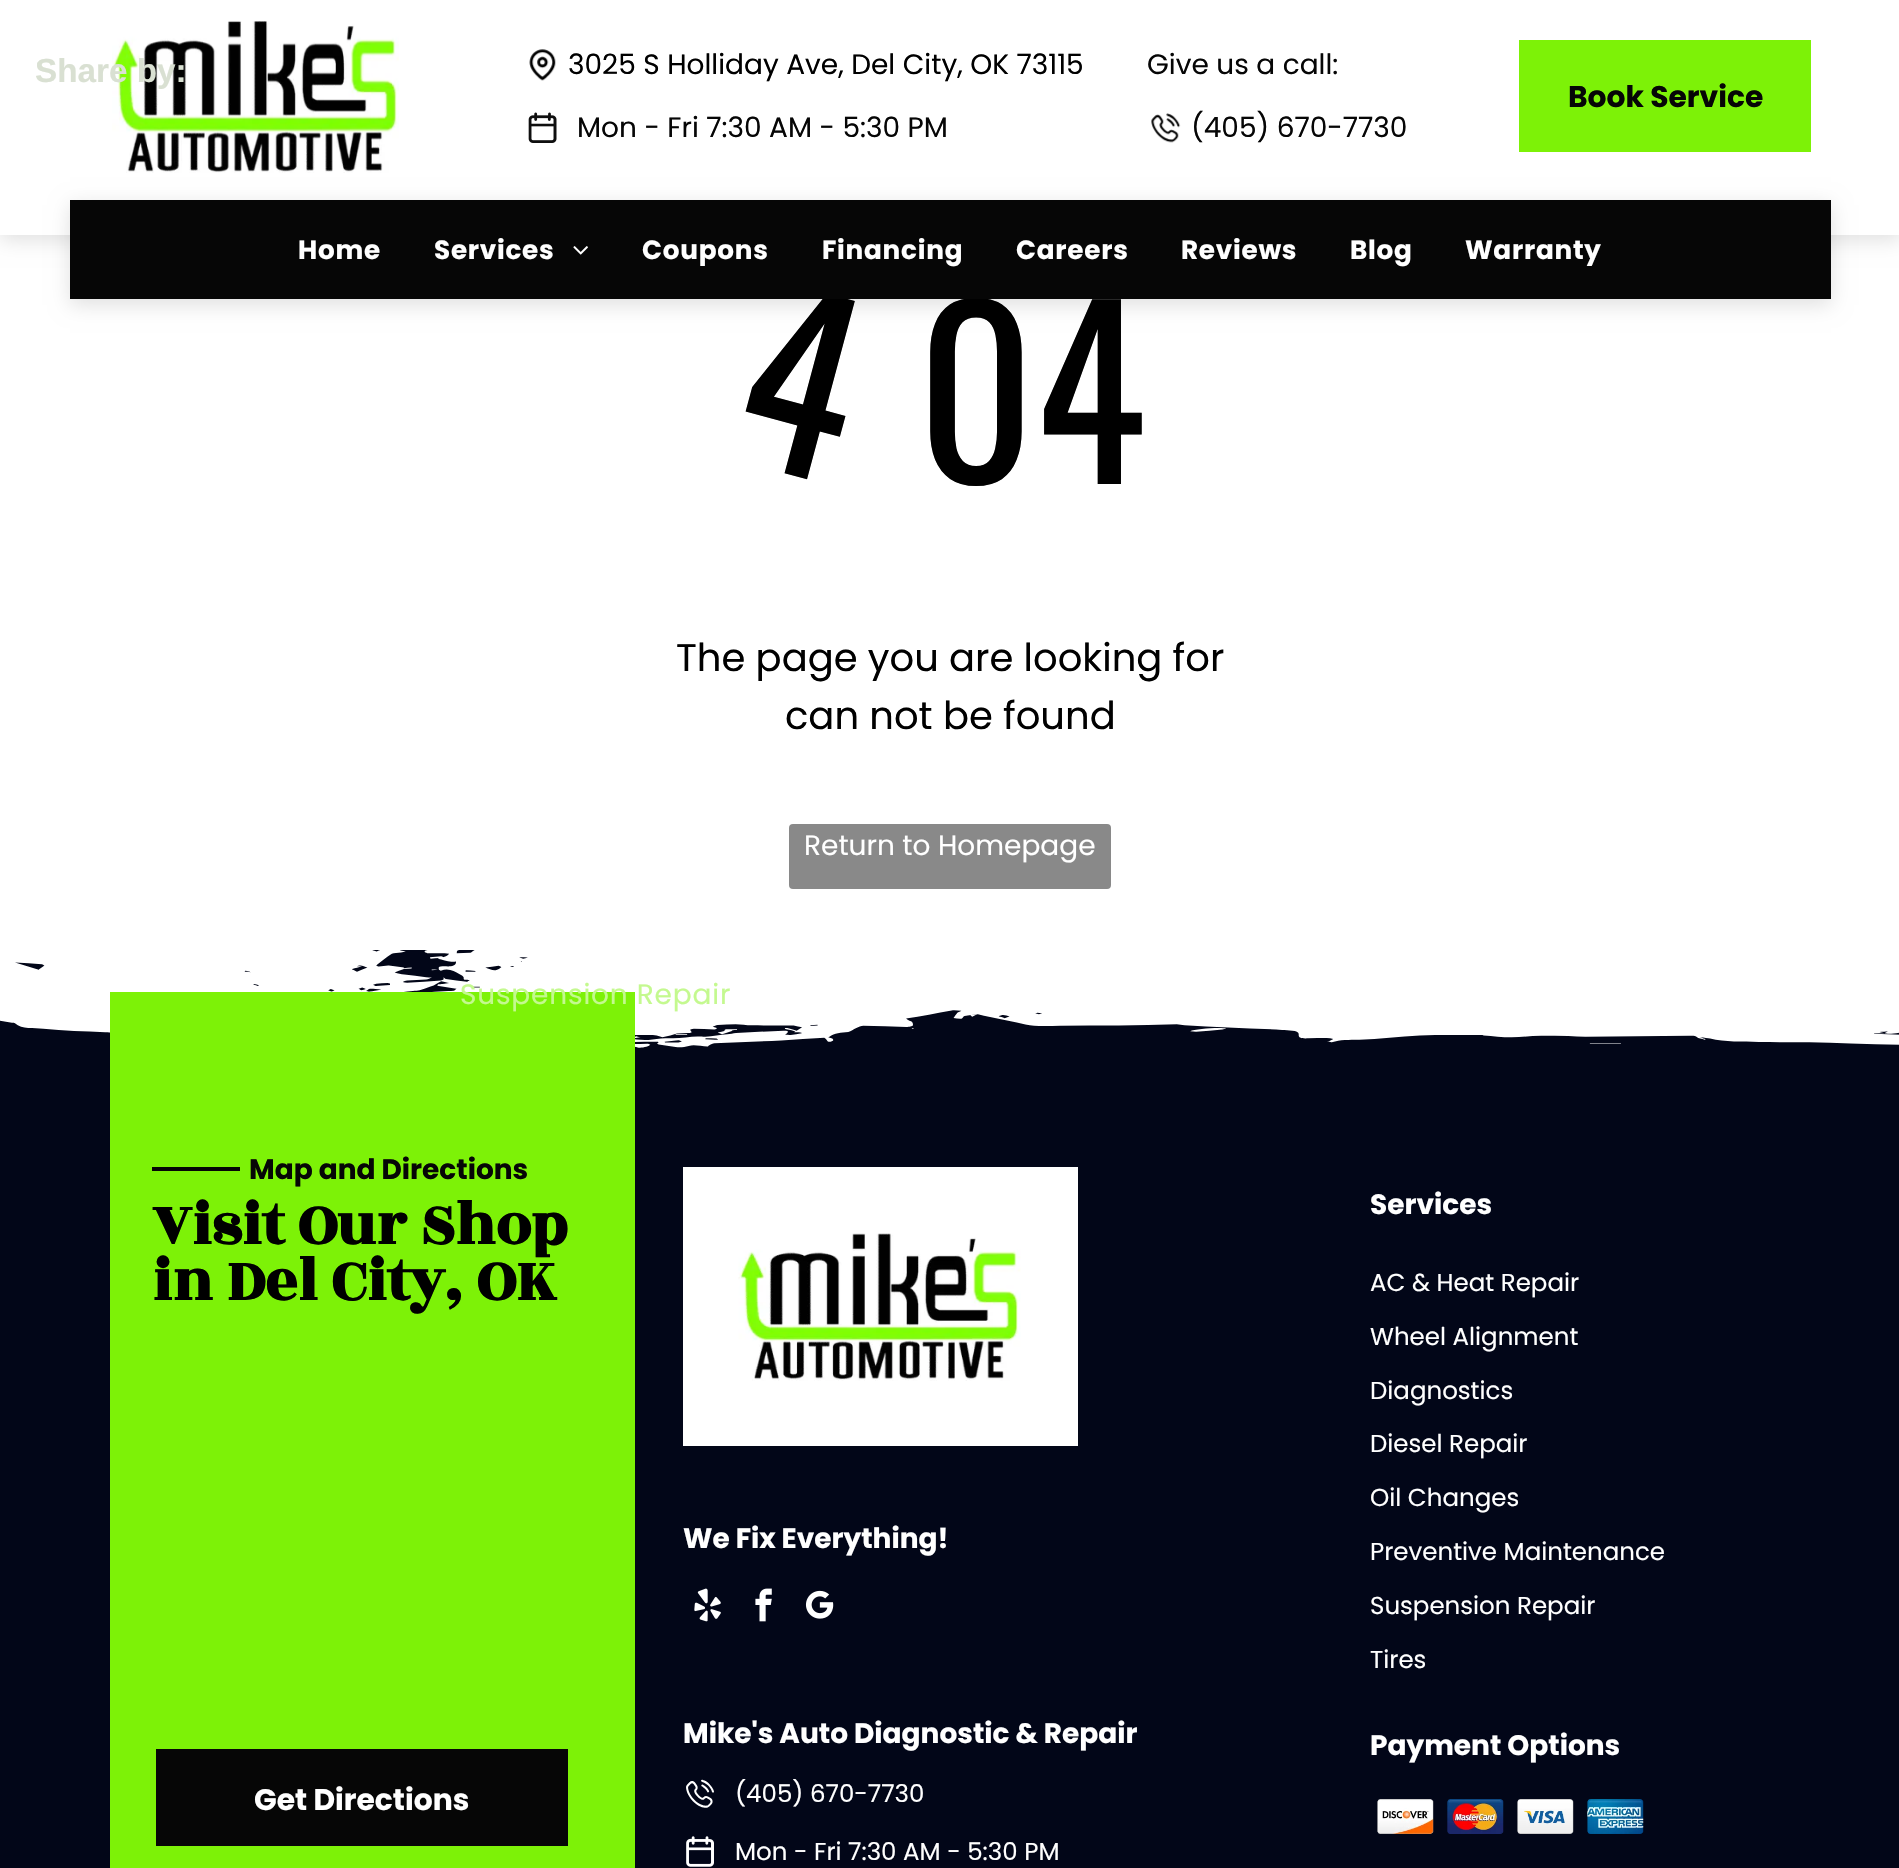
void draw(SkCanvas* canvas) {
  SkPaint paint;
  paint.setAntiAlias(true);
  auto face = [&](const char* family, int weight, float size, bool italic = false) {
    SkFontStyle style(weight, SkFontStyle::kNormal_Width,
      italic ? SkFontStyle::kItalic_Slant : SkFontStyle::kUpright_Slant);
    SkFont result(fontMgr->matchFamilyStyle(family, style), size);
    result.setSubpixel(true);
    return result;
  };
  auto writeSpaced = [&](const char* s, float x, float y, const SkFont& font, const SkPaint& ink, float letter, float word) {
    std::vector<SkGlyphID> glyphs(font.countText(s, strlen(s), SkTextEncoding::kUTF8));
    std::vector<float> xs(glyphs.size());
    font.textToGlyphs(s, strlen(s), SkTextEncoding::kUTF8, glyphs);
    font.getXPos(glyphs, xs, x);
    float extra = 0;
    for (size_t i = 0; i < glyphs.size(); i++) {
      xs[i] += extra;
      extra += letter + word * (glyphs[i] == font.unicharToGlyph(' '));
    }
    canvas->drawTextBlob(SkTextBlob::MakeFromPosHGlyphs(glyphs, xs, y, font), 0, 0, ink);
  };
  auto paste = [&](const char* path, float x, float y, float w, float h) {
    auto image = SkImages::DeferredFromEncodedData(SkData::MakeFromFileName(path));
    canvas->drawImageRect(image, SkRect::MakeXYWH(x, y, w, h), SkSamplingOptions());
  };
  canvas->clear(0xffffffff);
  paint.setColor(0x1f000000);
  paint.setMaskFilter(SkMaskFilter::MakeBlur(kNormal_SkBlurStyle, 9.5f));
  canvas->drawRect(SkRect::MakeXYWH(0, 5, 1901, 235), paint);
  paint.setMaskFilter(nullptr);
  paint.setColor(0xffffffff);
  canvas->drawRect(SkRect::MakeXYWH(0, 0, 1899, 235), paint);
  paste("img/1.png", 112, 21, 287, 152);
  paste("img/2.png", 529, 49, 27, 32);
  paste("img/3.png", 528, 112, 29, 31);
  paste("img/4.png", 1151, 113, 30, 30);
  paint.setColor(0xff7df207);
  canvas->drawRect(SkRect::MakeXYWH(1519, 40, 292, 112), paint);
  paint.setColor(0x1f000000);
  paint.setMaskFilter(SkMaskFilter::MakeBlur(kNormal_SkBlurStyle, 9.5f));
  canvas->drawRect(SkRect::MakeXYWH(70, 205, 1761, 100), paint);
  paint.setMaskFilter(nullptr);
  paint.setColor(0xff898989);
  canvas->drawRoundRect(SkRect::MakeXYWH(789, 824, 322, 65), 4, 4, paint);
  paint.setColor(0xff020618);
  canvas->drawRect(SkRect::MakeXYWH(0, 950, 1899, 918), paint);
  paste("img/6.png", 0, 950, 1899, 98);
  {
    const struct { float x, y, w, h; SkColor color; } items[] = {
      {110, 992, 525, 876, 0xff7df207},
      {152, 1167, 88, 4, 0xff060606},
      {156, 1749, 412, 97, 0xff060606},
      {683, 1167, 395, 279, 0xffffffff},
    };
    for (auto [x, y, w, h, color] : items) {
      paint.setColor(color);
      canvas->drawRect(SkRect::MakeXYWH(x, y, w, h), paint);
    }
  }
  paste("img/7.png", 738, 1233, 283, 148);
  paste("img/8.png", 694, 1588, 27, 34);
  paste("img/9.png", 755, 1588, 17, 34);
  paste("img/10.png", 805, 1590, 29, 29);
  paste("img/11.png", 686, 1779, 28, 29);
  paste("img/12.png", 686, 1836, 28, 31);
  paste("img/13.png", 1377, 1799, 57, 35);
  paste("img/14.png", 1447, 1799, 57, 35);
  paste("img/15.png", 1517, 1799, 57, 35);
  paste("img/16.png", 1587, 1799, 57, 35);
  auto f0 = face("Liberation Sans", 700, 33.25f);
  paint.setColor(0xffd9e0d2);
  canvas->drawString("Share by:", 35, 82, f0, paint);
  auto f1 = face("Poppins", 400, 28);
  paint.setColor(0xff000000);
  canvas->drawString("3025 S Holliday Ave, Del City, OK 73115", 568, 74, f1, paint);
  paint.setColor(0xff060606);
  {
    const struct { const char* s; float x, y; } items[] = {
      {"Mon - Fri 7:30 AM - 5:30 PM", 577, 137},
      {"Give us a call:", 1147, 74},
      {"(405) 670-7730", 1191, 137},
    };
    for (auto [s, x, y] : items) {
      canvas->drawString(s, x, y, f1, paint);
    }
  }
  auto f2 = face("Poppins", 700, 29.75f);
  canvas->drawString("Book Service", 1568, 107, f2, paint);
  paint.setColor(0xffc4f98f);
  writeSpaced("Suspension Repair", 460, 1004, f1, paint, 0.8f, 0);
  auto f3 = face("Oswald", 400, 228);
  paint.setColor(0xff000000);
  canvas->save();
  canvas->rotate(15, 724, 457);
  canvas->drawString("4", 724, 457, f3, paint);
  canvas->restore();
  canvas->drawString("04", 917, 484, f3, paint);
  paint.setColor(0xff060606);
  canvas->drawRect(SkRect::MakeXYWH(70, 200, 1761, 99), paint);
  auto f4 = face("Poppins", 700, 26.25f);
  paint.setColor(0xffffffff);
  {
    const struct { const char* s; float x, y; } items[] = {
      {"Warranty", 1465, 259},
      {"Blog", 1350, 259},
      {"Reviews", 1181, 259},
      {"Careers", 1016, 259},
      {"Financing", 822, 259},
      {"Coupons", 642, 259},
    };
    for (auto [s, x, y] : items) {
      writeSpaced(s, x, y, f4, paint, 0.75f, 0);
    }
  }
  paste("img/5.png", 573, 246, 15, 9);
  writeSpaced("Services", 434, 259, f4, paint, 0.75f, 0);
  writeSpaced("Home", 298, 259, f4, paint, 0.75f, 0);
  auto f5 = face("Poppins", 400, 38.5f);
  paint.setColor(0xff000000);
  canvas->drawString("The page you are looking for", 676, 671, f5, paint);
  canvas->drawString("can not be found", 785, 729, f5, paint);
  paint.setColor(0xffffffff);
  canvas->drawString("Return to Homepage", 804, 855, f1, paint);
  auto f6 = face("Poppins", 700, 28);
  paint.setColor(0xff060606);
  canvas->drawString("Map and Directions", 249, 1179, f6, paint);
  auto f7 = face("Rozha One", 700, 63);
  paint.setColor(0xff000000);
  canvas->drawString("Visit Our Shop", 152, 1244, f7, paint);
  canvas->drawString("in Del City, OK", 152, 1300, f7, paint);
  paint.setColor(0xffffffff);
  canvas->drawString("Get Directions", 254, 1810, f2, paint);
  canvas->drawString("We Fix Everything!", 683, 1548, f6, paint);
  canvas->drawString("Mike's Auto Diagnostic & Repair", 683, 1743, f6, paint);
  auto f8 = face("Poppins", 400, 24.5f);
  canvas->drawString("(405) 670-7730", 735, 1802, f8, paint);
  canvas->drawString("Mon - Fri 7:30 AM - 5:30 PM", 735, 1860, f8, paint);
  canvas->drawString("Services", 1370, 1214, f6, paint);
  {
    const struct { const char* s; float x, y; } items[] = {
      {"AC & Heat Repair", 1370, 1291},
      {"Wheel Alignment", 1370, 1345},
      {"Diagnostics", 1370, 1399},
      {"Diesel Repair", 1370, 1452},
      {"Oil Changes", 1370, 1506},
      {"Preventive Maintenance", 1370, 1560},
      {"Suspension Repair", 1370, 1614},
      {"Tires", 1370, 1668},
    };
    for (auto [s, x, y] : items) {
      canvas->drawString(s, x, y, f8, paint);
    }
  }
  canvas->drawString("Payment Options", 1370, 1755, f6, paint);
}
